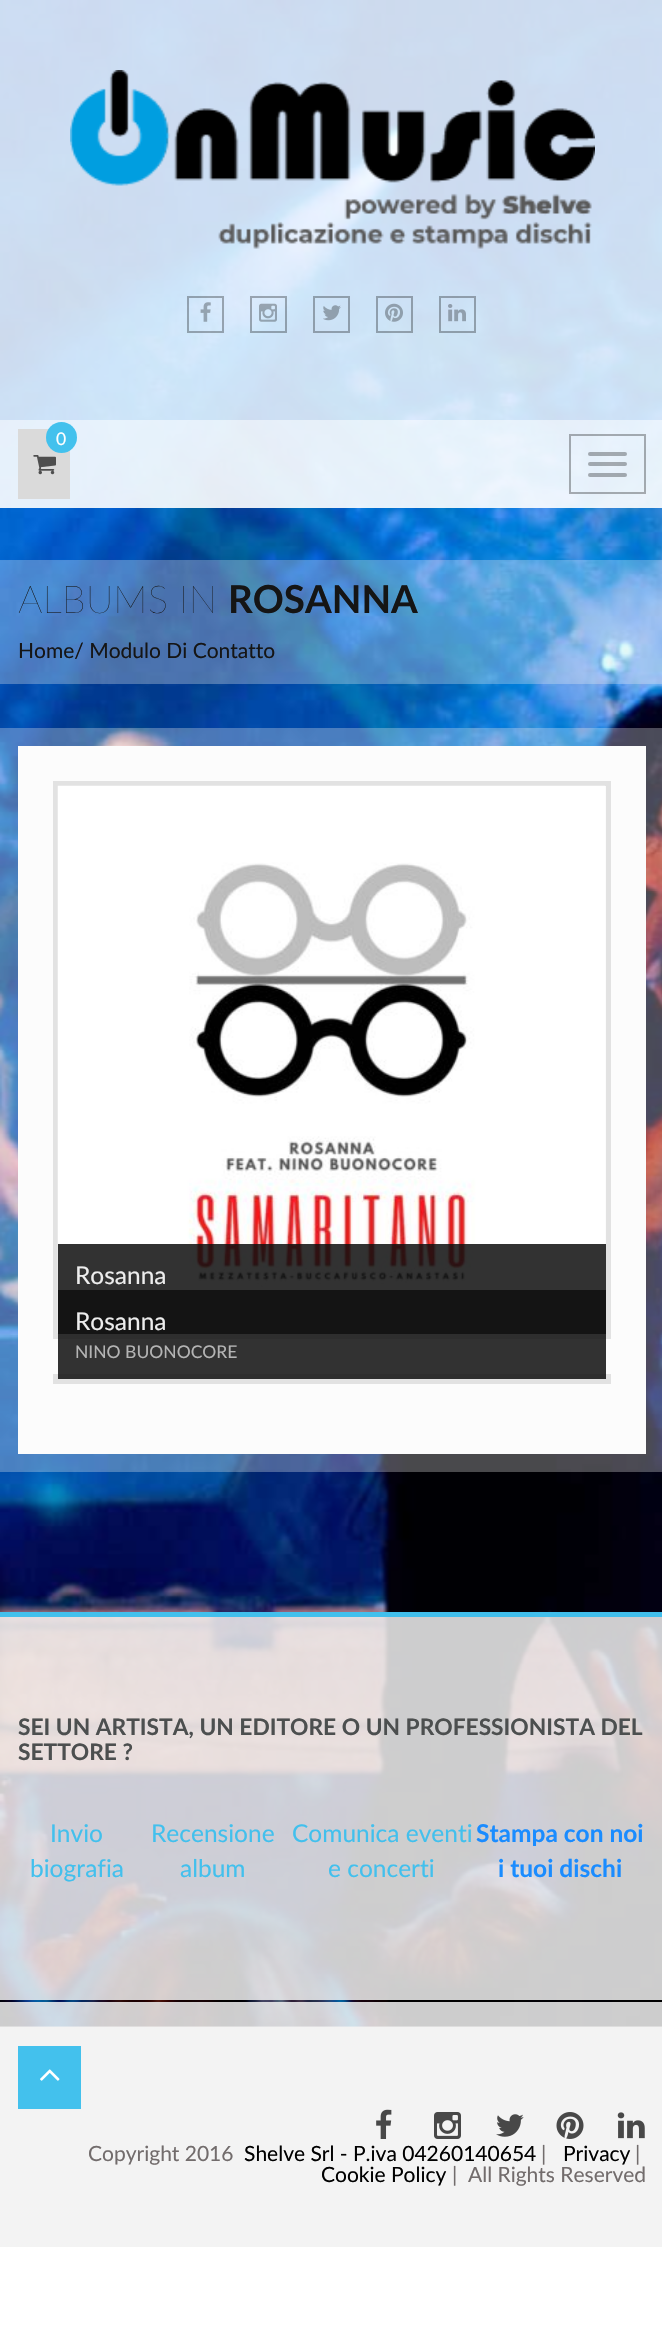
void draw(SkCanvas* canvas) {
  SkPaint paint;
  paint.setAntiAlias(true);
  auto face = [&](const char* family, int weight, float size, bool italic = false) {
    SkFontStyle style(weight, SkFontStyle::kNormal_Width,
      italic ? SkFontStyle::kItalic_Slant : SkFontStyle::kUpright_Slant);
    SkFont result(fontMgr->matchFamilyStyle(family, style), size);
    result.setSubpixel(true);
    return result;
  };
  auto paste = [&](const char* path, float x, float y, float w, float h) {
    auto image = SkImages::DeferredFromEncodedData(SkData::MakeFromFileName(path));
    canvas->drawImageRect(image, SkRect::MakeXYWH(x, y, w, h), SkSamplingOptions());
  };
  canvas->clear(0xffffffff);
  paste("img/1.png", 0, 0, 662, 2027);
  paint.setColor(0xccffffff);
  canvas->drawRect(SkRect::MakeXYWH(0, 0, 662, 420), paint);
  paste("img/2.png", 70, 70, 525, 179);
  paint.setStroke(true);
  paint.setStrokeWidth(2);
  paint.setColor(0x4d000000);
  canvas->drawRect(SkRect::MakeXYWH(188, 297, 35, 35), paint);
  paste("img/3.png", 200, 302, 11, 20);
  canvas->drawRect(SkRect::MakeXYWH(251, 297, 35, 35), paint);
  paste("img/4.png", 259, 303, 18, 19);
  canvas->drawRect(SkRect::MakeXYWH(314, 297, 35, 35), paint);
  paste("img/5.png", 323, 305, 18, 16);
  canvas->drawRect(SkRect::MakeXYWH(377, 297, 35, 35), paint);
  paste("img/6.png", 385, 303, 18, 19);
  canvas->drawRect(SkRect::MakeXYWH(440, 297, 35, 35), paint);
  paste("img/7.png", 448, 304, 18, 18);
  paint.setStroke(false);
  paint.setColor(0xe6ffffff);
  canvas->drawRect(SkRect::MakeXYWH(0, 420, 662, 88), paint);
  paint.setColor(0xffdadada);
  canvas->drawRect(SkRect::MakeXYWH(18, 429, 52, 70), paint);
  paint.setColor(0xfc41c0ed);
  canvas->drawCircle(61.5f, 437.5f, 15.5f, paint);
  paste("img/8.png", 33, 455, 23, 20);
  paint.setStroke(true);
  paint.setColor(0x4d000000);
  canvas->drawRect(SkRect::MakeXYWH(570, 435, 75, 58), paint);
  paint.setStroke(false);
  canvas->drawRoundRect(SkRect::MakeXYWH(588, 452, 39, 4), 2, 2, paint);
  canvas->drawRoundRect(SkRect::MakeXYWH(588, 462, 39, 4), 2, 2, paint);
  canvas->drawRoundRect(SkRect::MakeXYWH(588, 473, 39, 4), 2, 2, paint);
  {
    const struct { float x, y, w, h; SkColor color; } items[] = {
      {0, 560, 662, 124, 0x4df1f1f1},
      {0, 728, 662, 744, 0x4df1f1f1},
      {18, 746, 628, 708, 0xfffcfcfc},
    };
    for (auto [x, y, w, h, color] : items) {
      paint.setColor(color);
      canvas->drawRect(SkRect::MakeXYWH(x, y, w, h), paint);
    }
  }
  paint.setStroke(true);
  paint.setStrokeWidth(5);
  paint.setColor(0xffe2e2e2);
  canvas->drawRect(SkRect::MakeXYWH(55.5f, 783.5f, 553, 553), paint);
  paste("img/9.png", 57, 785, 548, 548);
  paint.setStroke(false);
  {
    const struct { float x, y, w, h; SkColor color; } items[] = {
      {58, 1244, 548, 90, 0xd90e0e0e},
      {53, 1374, 558, 10, 0xffe2e2e2},
      {58, 1290, 548, 89, 0xd90e0e0e},
      {0, 1612, 662, 5, 0xfc41c0ed},
      {0, 1617, 662, 383, 0xd9f1f1f1},
      {0, 2002, 662, 245, 0xd9f1f1f1},
      {18, 2046, 63, 63, 0xff43c1ed},
    };
    for (auto [x, y, w, h, color] : items) {
      paint.setColor(color);
      canvas->drawRect(SkRect::MakeXYWH(x, y, w, h), paint);
    }
  }
  paste("img/10.png", 40, 2069, 20, 12);
  paste("img/11.png", 376, 2109, 16, 30);
  paste("img/12.png", 434, 2112, 27, 27);
  paste("img/13.png", 496, 2114, 28, 23);
  paste("img/14.png", 556, 2112, 28, 27);
  paste("img/15.png", 617, 2112, 28, 27);
  auto f0 = face("Lato", 400, 17.5f);
  paint.setColor(0xffffffff);
  canvas->drawString("0", 56, 445, f0, paint);
  auto f1 = face("Lato", 200, 38.5f);
  paint.setColor(0xff151515);
  canvas->drawString("ALBUMS IN", 18, 613, f1, paint);
  auto f2 = face("Lato", 700, 38.5f);
  canvas->drawString("ROSANNA", 228, 613, f2, paint);
  auto f3 = face("Lato", 400, 21);
  canvas->drawString("Home/ Modulo Di Contatto", 18, 658, f3, paint);
  auto f4 = face("Lato", 400, 24.5f);
  paint.setColor(0xffededed);
  canvas->drawString("Rosanna", 75, 1284, f4, paint);
  canvas->drawString("Rosanna", 75, 1330, f4, paint);
  paint.setColor(0xffb4b4b4);
  canvas->drawString("NINO BUONOCORE", 75, 1358, f0, paint);
  auto f5 = face("Lato", 700, 22.75f);
  paint.setColor(0xff4c4f4f);
  canvas->drawString("SEI UN ARTISTA, UN EDITORE O UN PROFESSIONISTA DEL", 18, 1735, f5, paint);
  canvas->drawString("SETTORE ?", 18, 1760, f5, paint);
  paint.setColor(0xff42c0ed);
  {
    const struct { const char* s; float x, y; } items[] = {
      {"Invio", 50, 1842},
      {"biografia", 30, 1877},
      {"Recensione", 151, 1842},
      {"album", 180, 1877},
      {"Comunica eventi", 292, 1842},
      {"e concerti", 328, 1877},
    };
    for (auto [s, x, y] : items) {
      canvas->drawString(s, x, y, f4, paint);
    }
  }
  auto f6 = face("Lato", 700, 24.5f);
  paint.setColor(0xff1a8cff);
  canvas->drawString("Stampa con noi", 476, 1842, f6, paint);
  canvas->drawString("i tuoi dischi", 498, 1877, f6, paint);
  paint.setColor(0xff726c6c);
  canvas->drawString("Copyright 2016", 88, 2161, f3, paint);
  paint.setColor(0xff000000);
  canvas->drawString("Shelve Srl - P.iva 04260140654", 244, 2161, f3, paint);
  paint.setColor(0xff726c6c);
  canvas->drawString("|", 541, 2161, f3, paint);
  paint.setColor(0xff000000);
  canvas->drawString("Privacy", 563, 2161, f3, paint);
  paint.setColor(0xff726c6c);
  canvas->drawString("|", 635, 2161, f3, paint);
  paint.setColor(0xff000000);
  canvas->drawString("Cookie Policy", 321, 2182, f3, paint);
  paint.setColor(0xff726c6c);
  canvas->drawString("|", 452, 2182, f3, paint);
  canvas->drawString("All Rights Reserved", 468, 2182, f3, paint);
}
